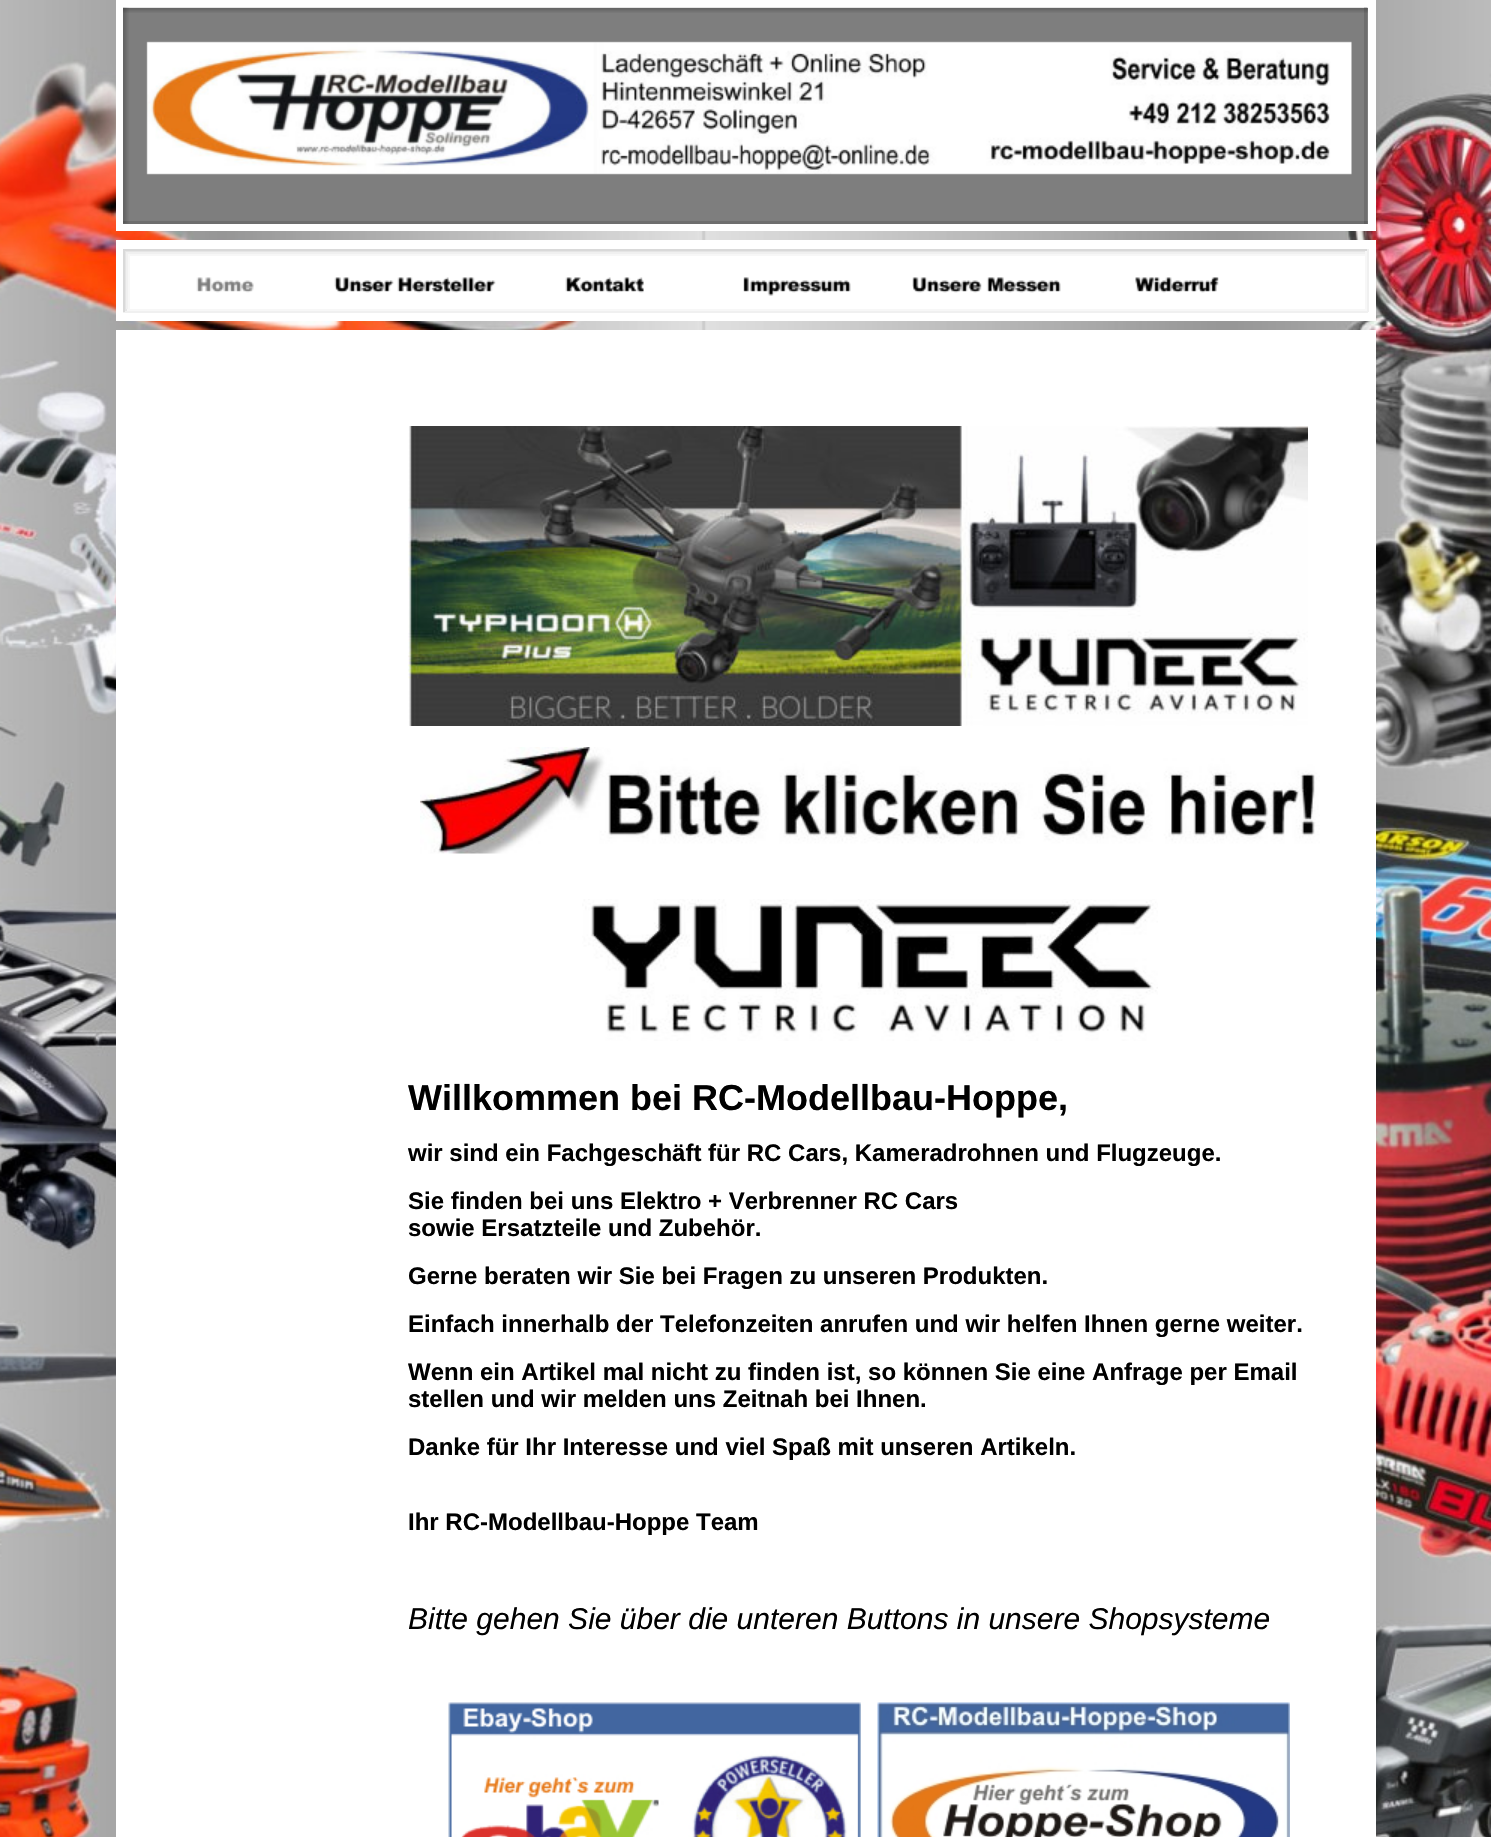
void draw(SkCanvas* canvas) {
  SkPaint paint;
  paint.setAntiAlias(true);
  auto face = [&](const char* family, int weight, float size, bool italic = false) {
    SkFontStyle style(weight, SkFontStyle::kNormal_Width,
      italic ? SkFontStyle::kItalic_Slant : SkFontStyle::kUpright_Slant);
    SkFont result(fontMgr->matchFamilyStyle(family, style), size);
    result.setSubpixel(true);
    return result;
  };
  auto paste = [&](const char* path, float x, float y, float w, float h) {
    auto image = SkImages::DeferredFromEncodedData(SkData::MakeFromFileName(path));
    canvas->drawImageRect(image, SkRect::MakeXYWH(x, y, w, h), SkSamplingOptions());
  };
  canvas->clear(0xffffffff);
  paste("img/1.png", 0, 0, 1491, 1837);
  paint.setColor(0xffffffff);
  canvas->drawRect(SkRect::MakeXYWH(116, 0, 1260, 231), paint);
  paint.setColor(0xff7e7e7e);
  canvas->drawRect(SkRect::MakeXYWH(123, 8, 1245, 213), paint);
  paste("img/2.png", 123, 7, 1245, 6);
  paint.setColor(0xff6e6e6e);
  canvas->drawRect(SkRect::MakeXYWH(123, 221, 1245, 3), paint);
  paste("img/3.png", 123, 7, 6, 217);
  paste("img/4.png", 146, 41, 1206, 134);
  {
    const struct { float x, y, w, h; SkColor color; } items[] = {
      {1364, 7, 3, 217, 0x21000000},
      {116, 240, 1260, 81, 0xffffffff},
      {123, 249, 1245, 2, 0xffd9d9d9},
      {1367, 249, 2, 63, 0xfff0f0f0},
      {123, 311, 1245, 2, 0xfff0f0f0},
      {123, 249, 2, 63, 0xffd9d9d9},
      {125, 251, 1242, 1, 0xffe5e5e5},
      {1365, 251, 2, 60, 0xfff7f7f7},
      {125, 309, 1242, 2, 0xfff7f7f7},
      {125, 251, 2, 60, 0xffe5e5e5},
      {126, 252, 1239, 2, 0xfff0f0f0},
      {126, 252, 2, 57, 0xfff0f0f0},
      {128, 254, 1237, 2, 0xfff7f7f7},
      {128, 254, 2, 55, 0xfff7f7f7},
    };
    for (auto [x, y, w, h, color] : items) {
      paint.setColor(color);
      canvas->drawRect(SkRect::MakeXYWH(x, y, w, h), paint);
    }
  }
  paste("img/5.png", 196, 277, 58, 16);
  paste("img/6.png", 334, 277, 162, 16);
  paste("img/7.png", 565, 277, 79, 16);
  paste("img/8.png", 743, 277, 108, 19);
  paste("img/9.png", 912, 277, 149, 16);
  paste("img/10.png", 1135, 277, 84, 16);
  paint.setColor(0xffffffff);
  canvas->drawRect(SkRect::MakeXYWH(116, 330, 1260, 1507), paint);
  paste("img/11.png", 408, 426, 900, 300);
  paste("img/12.png", 420, 747, 900, 107);
  paste("img/13.png", 582, 899, 576, 142);
  paste("img/14.png", 448, 1702, 413, 135);
  paste("img/15.png", 877, 1702, 413, 135);
  auto f0 = face("Liberation Sans", 700, 36);
  paint.setColor(0xff000000);
  canvas->drawString("Willkommen bei RC-Modellbau-Hoppe,", 408, 1110, f0, paint);
  auto f1 = face("Liberation Sans", 700, 24);
  {
    const struct { const char* s; float x, y; } items[] = {
      {"wir sind ein Fachgeschäft für RC Cars, Kameradrohnen und Flugzeuge.", 408, 1161},
      {"Sie finden bei uns Elektro + Verbrenner RC Cars", 408, 1209},
      {"sowie Ersatzteile und Zubehör.", 408, 1236},
      {"Gerne beraten wir Sie bei Fragen zu unseren Produkten.", 408, 1284},
      {"Einfach innerhalb der Telefonzeiten anrufen und wir helfen Ihnen gerne weiter.", 408, 1332},
      {"Wenn ein Artikel mal nicht zu finden ist, so können Sie eine Anfrage per Email", 408, 1380},
      {"stellen und wir melden uns Zeitnah bei Ihnen.", 408, 1407},
      {"Danke für Ihr Interesse und viel Spaß mit unseren Artikeln.", 408, 1455},
      {"Ihr RC-Modellbau-Hoppe Team", 408, 1530},
    };
    for (auto [s, x, y] : items) {
      canvas->drawString(s, x, y, f1, paint);
    }
  }
  auto f2 = face("Liberation Sans", 400, 30, true);
  canvas->drawString("Bitte gehen Sie über die unteren Buttons in unsere Shopsysteme", 408, 1629, f2, paint);
}
